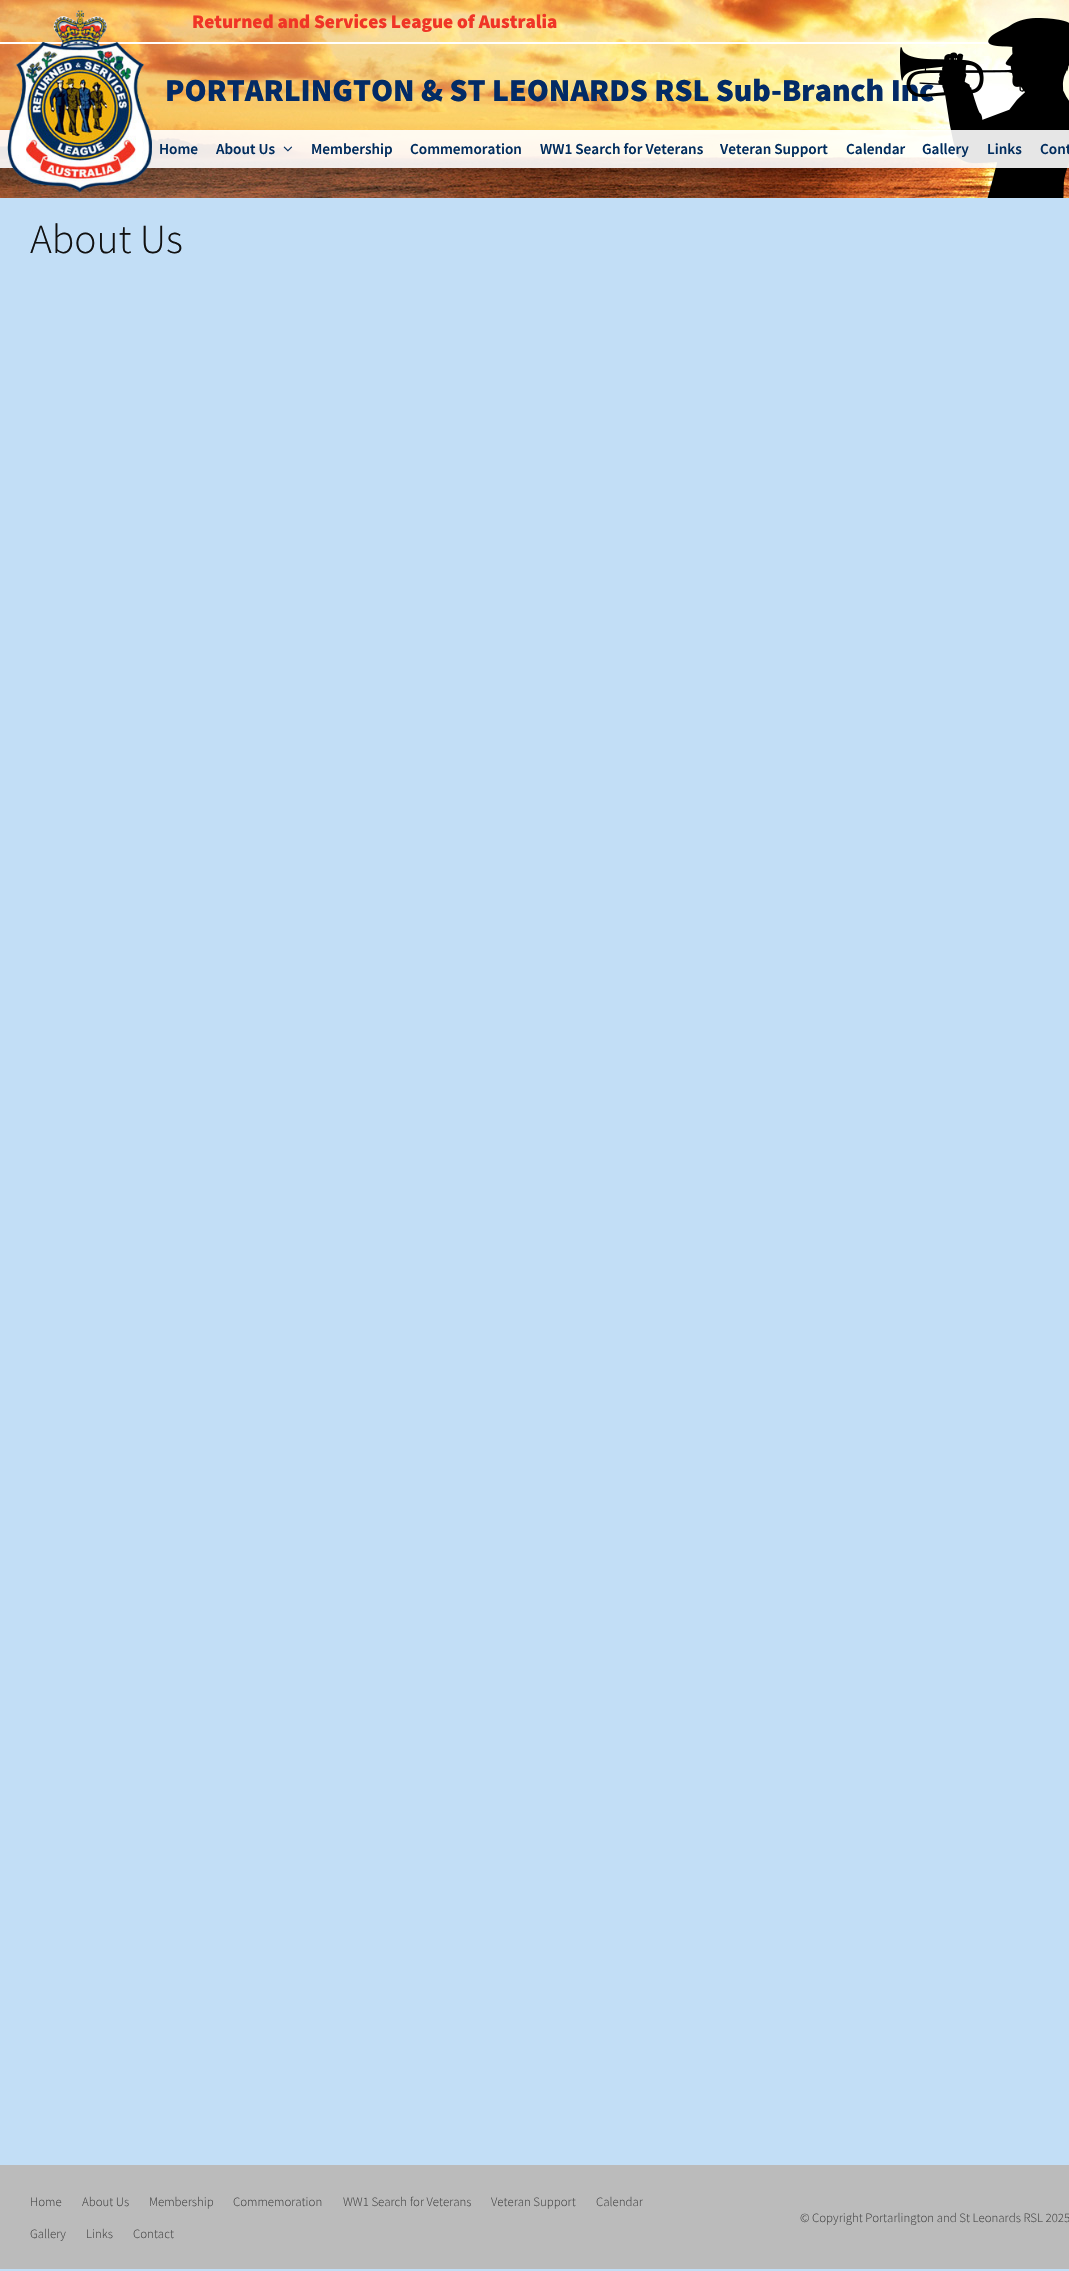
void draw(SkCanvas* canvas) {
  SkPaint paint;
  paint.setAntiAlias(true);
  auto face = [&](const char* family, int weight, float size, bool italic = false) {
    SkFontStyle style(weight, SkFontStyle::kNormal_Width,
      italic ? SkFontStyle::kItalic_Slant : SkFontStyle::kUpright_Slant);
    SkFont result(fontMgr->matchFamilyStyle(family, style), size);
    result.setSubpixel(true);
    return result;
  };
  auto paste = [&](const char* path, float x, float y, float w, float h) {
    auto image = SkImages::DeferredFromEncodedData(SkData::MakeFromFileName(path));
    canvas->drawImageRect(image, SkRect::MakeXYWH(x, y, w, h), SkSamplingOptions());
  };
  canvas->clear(0xffc2def6);
  paste("img/1.png", 0, 0, 1069, 198);
  paint.setColor(0xffffffff);
  canvas->drawRect(SkRect::MakeXYWH(0, 42, 990, 2), paint);
  paint.setColor(0xffbbbbbb);
  canvas->drawRect(SkRect::MakeXYWH(0, 2165, 1069, 104), paint);
  auto f0 = face("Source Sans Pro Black", 900, 19.25f);
  paint.setColor(0xfff03526);
  canvas->drawString("Returned and Services League of Australia", 192, 28, f0, paint);
  auto f1 = face("Source Sans Pro Black", 900, 32);
  paint.setColor(0xff032b66);
  canvas->drawString("PORTARLINGTON & ST LEONARDS RSL Sub-Branch Inc", 165, 101, f1, paint);
  paste("img/3.png", 900, 18, 169, 180);
  paint.setColor(0xe6ffffff);
  canvas->drawRect(SkRect::MakeXYWH(0, 130, 1069, 38), paint);
  paste("img/2.png", 7, 10, 145, 183);
  auto f2 = face("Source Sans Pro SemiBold", 600, 15.25f);
  paint.setColor(0xff012d5e);
  canvas->drawString("Home", 159, 154, f2, paint);
  canvas->drawString("About Us", 216, 154, f2, paint);
  paste("img/4.png", 283, 146, 10, 6);
  {
    const struct { const char* s; float x, y; } items[] = {
      {"Membership", 311, 154},
      {"Commemoration", 410, 154},
      {"WW1 Search for Veterans", 540, 154},
      {"Veteran Support", 720, 154},
      {"Calendar", 846, 154},
      {"Gallery", 922, 154},
      {"Links", 987, 154},
      {"Cont", 1040, 154},
    };
    for (auto [s, x, y] : items) {
      canvas->drawString(s, x, y, f2, paint);
    }
  }
  auto f3 = face("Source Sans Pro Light", 300, 41.5f);
  paint.setColor(0xff111111);
  canvas->drawString("About Us", 30, 253, f3, paint);
  auto f4 = face("Source Sans Pro Light", 300, 12.8f);
  paint.setColor(0xff444444);
  {
    const struct { const char* s; float x, y; } items[] = {
      {"Home", 30, 2206},
      {"About Us", 82, 2206},
      {"Membership", 149, 2206},
      {"Commemoration", 233, 2206},
      {"WW1 Search for Veterans", 343, 2206},
      {"Veteran Support", 491, 2206},
      {"Calendar", 596, 2206},
      {"Gallery", 30, 2238},
      {"Links", 86, 2238},
      {"Contact", 133, 2238},
      {"© Copyright Portarlington and St Leonards RSL 2025", 800, 2222},
    };
    for (auto [s, x, y] : items) {
      canvas->drawString(s, x, y, f4, paint);
    }
  }
}
